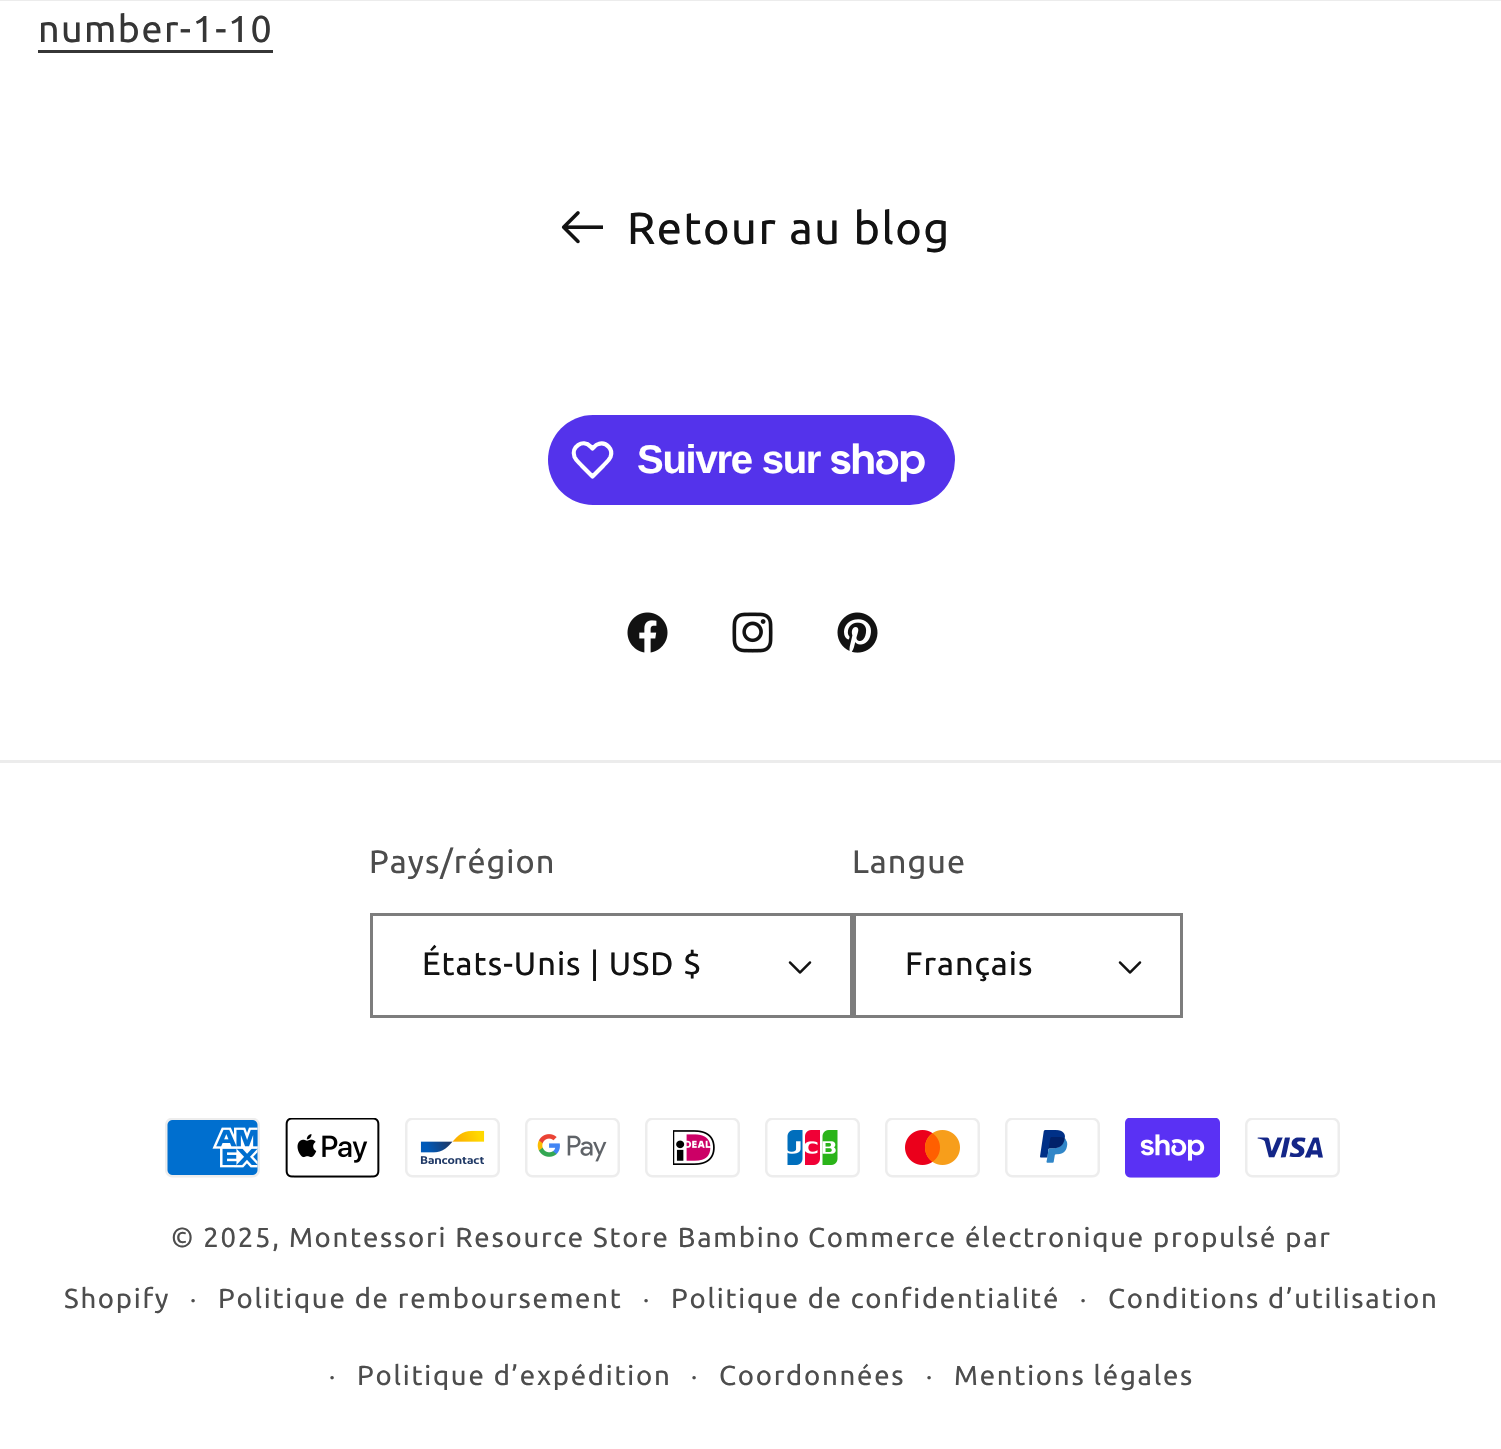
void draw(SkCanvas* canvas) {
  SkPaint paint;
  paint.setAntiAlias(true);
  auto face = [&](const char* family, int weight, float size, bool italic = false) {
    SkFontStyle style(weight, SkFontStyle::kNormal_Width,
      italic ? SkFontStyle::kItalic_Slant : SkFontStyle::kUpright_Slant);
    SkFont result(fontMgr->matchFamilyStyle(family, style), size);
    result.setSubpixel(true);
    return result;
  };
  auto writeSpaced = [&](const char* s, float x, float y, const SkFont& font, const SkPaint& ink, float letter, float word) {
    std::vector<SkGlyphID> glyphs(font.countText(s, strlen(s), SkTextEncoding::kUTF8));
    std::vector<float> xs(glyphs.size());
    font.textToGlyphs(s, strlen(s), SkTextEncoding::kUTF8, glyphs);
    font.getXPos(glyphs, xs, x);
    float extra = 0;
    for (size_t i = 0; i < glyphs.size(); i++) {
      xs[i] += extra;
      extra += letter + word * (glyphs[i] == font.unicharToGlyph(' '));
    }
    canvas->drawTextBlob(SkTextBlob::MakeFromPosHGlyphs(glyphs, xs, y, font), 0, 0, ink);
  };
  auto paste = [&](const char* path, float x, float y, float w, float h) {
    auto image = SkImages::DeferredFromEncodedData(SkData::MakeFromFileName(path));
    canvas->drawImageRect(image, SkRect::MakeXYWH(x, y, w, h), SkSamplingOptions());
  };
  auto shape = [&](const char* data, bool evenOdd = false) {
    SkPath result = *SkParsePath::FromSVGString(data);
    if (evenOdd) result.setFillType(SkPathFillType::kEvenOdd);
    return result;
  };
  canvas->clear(0xffffffff);
  paint.setColor(0xffececec);
  canvas->drawRect(SkRect::MakeXYWH(0, 0, 1501, 1), paint);
  paint.setColor(0xff363636);
  canvas->drawRect(SkRect::MakeXYWH(38, 50, 235, 3), paint);
  paste("img/1.png", 561, 211, 42, 33);
  paint.setColor(0xff5433eb);
  canvas->drawRoundRect(SkRect::MakeXYWH(548, 415, 407, 90), 45, 45, paint);
  paint.setStroke(true);
  paint.setStrokeWidth(4.2f);
  paint.setStrokeJoin(SkPaint::kRound_Join);
  paint.setColor(0xffffffff);
  canvas->drawPath(shape("M590.5 446.5L592.5 448.5C594.5 446.5 596 444.5 598.5 444C606.5 441.5 613.5 449.5 610.5 457C609 460.5 605.5 463 603 466L592.5 476.5L582 466C579.5 463 576 460.5 574.5 457C570.5 447 583 438.5 590.5 446.5Z"), paint);
  paste("img/2.png", 831, 443, 94, 39);
  paste("img/3.png", 627, 612, 41, 41);
  paste("img/4.png", 732, 612, 41, 41);
  paste("img/5.png", 837, 612, 41, 41);
  paint.setStroke(false);
  paint.setColor(0xffececec);
  canvas->drawRect(SkRect::MakeXYWH(0, 760, 1501, 3), paint);
  paste("img/6.png", 788, 961, 24, 13);
  paint.setStroke(true);
  paint.setStrokeWidth(3);
  paint.setStrokeJoin(SkPaint::kMiter_Join);
  paint.setColor(0xff7d7d7d);
  canvas->drawRect(SkRect::MakeXYWH(371.5f, 914.5f, 480, 102), paint);
  paste("img/6.png", 1118, 961, 24, 13);
  canvas->drawRect(SkRect::MakeXYWH(854.5f, 914.5f, 327, 102), paint);
  paste("img/7.png", 165, 1118, 95, 60);
  paste("img/8.png", 285, 1118, 95, 60);
  paste("img/9.png", 405, 1118, 95, 60);
  paste("img/10.png", 525, 1118, 95, 60);
  paste("img/11.png", 645, 1118, 95, 60);
  paste("img/12.png", 765, 1118, 95, 60);
  paste("img/13.png", 885, 1118, 95, 60);
  paste("img/14.png", 1005, 1118, 95, 60);
  paste("img/15.png", 1125, 1118, 95, 60);
  paste("img/16.png", 1245, 1118, 95, 60);
  auto f0 = face("Ubuntu", 400, 37.5f);
  paint.setStroke(false);
  paint.setColor(0xff363636);
  writeSpaced("number-1-10", 38, 42, f0, paint, 1.5f, 0);
  auto f1 = face("Ubuntu", 400, 45);
  paint.setColor(0xff121212);
  writeSpaced("Retour au blog", 627, 244, f1, paint, 1.5f, 0);
  auto f2 = face("Liberation Sans", 700, 40);
  paint.setColor(0xffffffff);
  writeSpaced("Suivre sur", 637, 473, f2, paint, -1.25f, 0);
  auto f3 = face("Ubuntu", 400, 32.5f);
  paint.setColor(0xff4d4d4d);
  writeSpaced("Pays/région", 369, 873, f3, paint, 1, 0);
  paint.setColor(0xff121212);
  writeSpaced("États-Unis | USD $", 422, 975, f3, paint, 1, 0);
  paint.setColor(0xff4d4d4d);
  writeSpaced("Langue", 852, 873, f3, paint, 1, 0);
  paint.setColor(0xff121212);
  writeSpaced("Français", 905, 975, f3, paint, 1, 0);
  auto f4 = face("Ubuntu", 400, 27.5f);
  paint.setColor(0xff4d4d4d);
  {
    const struct { const char* s; float x, y; } items[] = {
      {"© 2025, Montessori Resource Store Bambino", 171, 1247},
      {"Commerce électronique propulsé par", 808, 1247},
      {"Shopify", 64, 1308},
    };
    for (auto [s, x, y] : items) {
      writeSpaced(s, x, y, f4, paint, 1.75f, 0);
    }
  }
  auto f5 = face("Ubuntu", 400, 25);
  writeSpaced("·", 190, 1308, f5, paint, 1.75f, 0);
  writeSpaced("Politique de remboursement", 218, 1308, f4, paint, 1.75f, 0);
  writeSpaced("·", 643, 1308, f5, paint, 1.75f, 0);
  writeSpaced("Politique de confidentialité", 671, 1308, f4, paint, 1.75f, 0);
  writeSpaced("·", 1080, 1308, f5, paint, 1.75f, 0);
  writeSpaced("Conditions d’utilisation", 1108, 1308, f4, paint, 1.75f, 0);
  writeSpaced("·", 329, 1385, f5, paint, 1.75f, 0);
  writeSpaced("Politique d’expédition", 357, 1385, f4, paint, 1.75f, 0);
  writeSpaced("·", 691, 1385, f5, paint, 1.75f, 0);
  writeSpaced("Coordonnées", 719, 1385, f4, paint, 1.75f, 0);
  writeSpaced("·", 926, 1385, f5, paint, 1.75f, 0);
  writeSpaced("Mentions légales", 954, 1385, f4, paint, 1.75f, 0);
}
